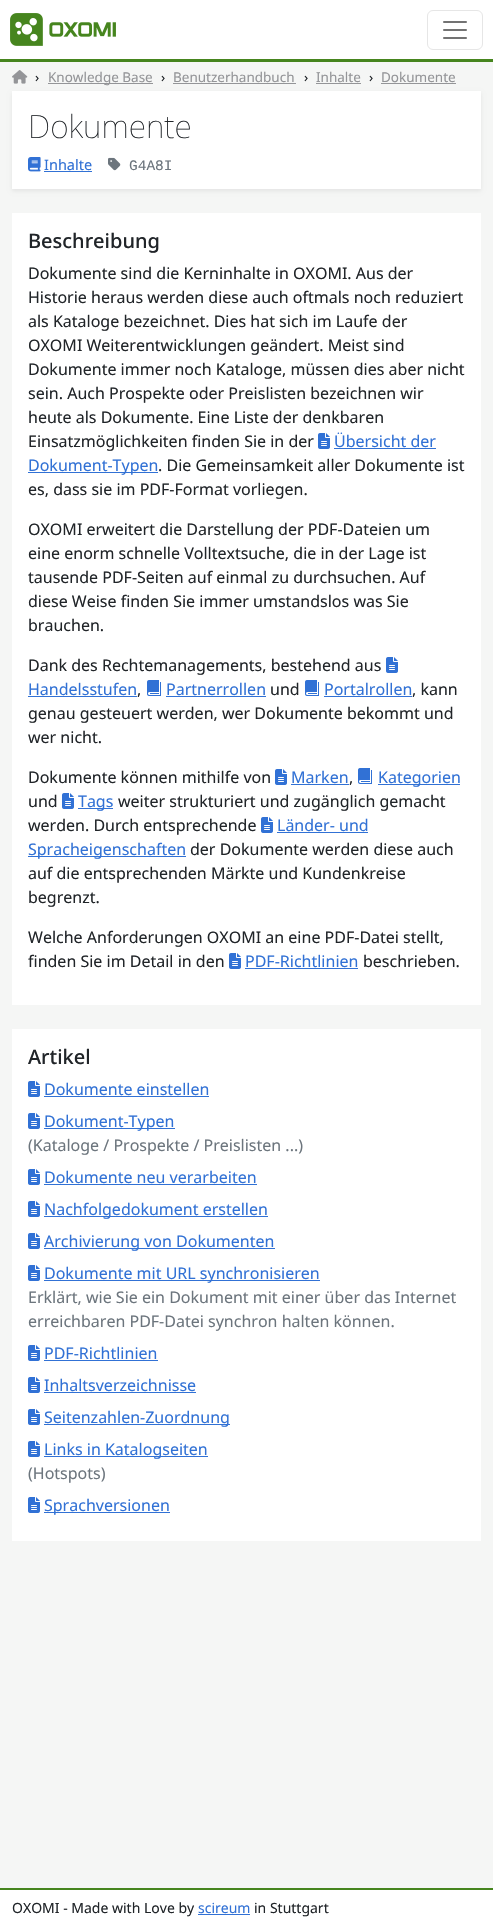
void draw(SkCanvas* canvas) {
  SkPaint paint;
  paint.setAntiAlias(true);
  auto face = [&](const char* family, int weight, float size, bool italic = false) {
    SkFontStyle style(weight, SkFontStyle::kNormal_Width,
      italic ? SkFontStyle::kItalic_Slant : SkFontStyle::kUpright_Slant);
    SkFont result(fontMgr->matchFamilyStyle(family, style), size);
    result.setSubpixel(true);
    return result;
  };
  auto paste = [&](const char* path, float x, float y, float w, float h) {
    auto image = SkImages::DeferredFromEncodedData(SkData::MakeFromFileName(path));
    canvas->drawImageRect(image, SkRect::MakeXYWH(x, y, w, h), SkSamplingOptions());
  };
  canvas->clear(0xfff5f6f5);
  paint.setColor(0xffffffff);
  canvas->drawRect(SkRect::MakeXYWH(0, 0, 493, 59), paint);
  paint.setColor(0xff46851e);
  canvas->drawRect(SkRect::MakeXYWH(0, 59, 493, 3), paint);
  paste("img/1.png", 10, 13, 106, 33);
  paint.setStroke(true);
  paint.setStrokeWidth(1);
  paint.setColor(0xffe6e6e6);
  canvas->drawRoundRect(SkRect::MakeXYWH(427.5f, 10.5f, 55, 39), 5.5f, 5.5f, paint);
  paste("img/2.png", 443, 21, 24, 18);
  paste("img/3.png", 12, 70, 16, 14);
  paint.setStroke(false);
  {
    const struct { float x, y, w, h; SkColor color; } items[] = {
      {48, 83, 105, 1, 0xff949598},
      {173, 83, 123, 1, 0xff949598},
      {316, 83, 45, 1, 0xff949598},
      {381, 83, 75, 1, 0xff949598},
    };
    for (auto [x, y, w, h, color] : items) {
      paint.setColor(color);
      canvas->drawRect(SkRect::MakeXYWH(x, y, w, h), paint);
    }
  }
  paint.setColor(0x12000000);
  paint.setMaskFilter(SkMaskFilter::MakeBlur(kNormal_SkBlurStyle, 2));
  canvas->drawRect(SkRect::MakeXYWH(12, 93, 469, 98), paint);
  paint.setMaskFilter(nullptr);
  paint.setColor(0xffffffff);
  canvas->drawRect(SkRect::MakeXYWH(12, 91, 469, 98), paint);
  paste("img/4.png", 28, 157, 13, 15);
  paint.setColor(0xff3171d5);
  canvas->drawRect(SkRect::MakeXYWH(44, 171, 48, 1), paint);
  paste("img/5.png", 108, 157, 13, 14);
  paint.setColor(0xffffffff);
  canvas->drawRect(SkRect::MakeXYWH(12, 213, 469, 792), paint);
  paste("img/6.png", 318, 433, 12, 16);
  paint.setColor(0xff3171d5);
  canvas->drawRect(SkRect::MakeXYWH(334, 448, 102, 1), paint);
  canvas->drawRect(SkRect::MakeXYWH(28, 472, 130, 1), paint);
  paste("img/6.png", 386, 657, 12, 16);
  canvas->drawRect(SkRect::MakeXYWH(28, 696, 109, 1), paint);
  paste("img/7.png", 147, 680, 14, 16);
  canvas->drawRect(SkRect::MakeXYWH(166, 696, 100, 1), paint);
  paste("img/7.png", 305, 680, 14, 16);
  canvas->drawRect(SkRect::MakeXYWH(324, 696, 88, 1), paint);
  paste("img/6.png", 275, 769, 12, 16);
  canvas->drawRect(SkRect::MakeXYWH(291, 784, 58, 1), paint);
  paste("img/7.png", 358, 768, 14, 16);
  canvas->drawRect(SkRect::MakeXYWH(378, 784, 82, 1), paint);
  paste("img/6.png", 62, 793, 12, 16);
  canvas->drawRect(SkRect::MakeXYWH(78, 808, 35, 1), paint);
  paste("img/6.png", 261, 817, 12, 16);
  canvas->drawRect(SkRect::MakeXYWH(277, 832, 91, 1), paint);
  canvas->drawRect(SkRect::MakeXYWH(28, 856, 158, 1), paint);
  paste("img/6.png", 229, 953, 12, 16);
  canvas->drawRect(SkRect::MakeXYWH(245, 968, 113, 1), paint);
  paint.setColor(0xffffffff);
  canvas->drawRect(SkRect::MakeXYWH(12, 1029, 469, 512), paint);
  paste("img/6.png", 28, 1081, 12, 16);
  paint.setColor(0xff3171d5);
  canvas->drawRect(SkRect::MakeXYWH(44, 1096, 165, 1), paint);
  paste("img/6.png", 28, 1113, 12, 16);
  canvas->drawRect(SkRect::MakeXYWH(44, 1128, 131, 1), paint);
  paste("img/6.png", 28, 1169, 12, 16);
  canvas->drawRect(SkRect::MakeXYWH(44, 1184, 213, 1), paint);
  paste("img/6.png", 28, 1201, 12, 16);
  canvas->drawRect(SkRect::MakeXYWH(44, 1216, 224, 1), paint);
  paste("img/6.png", 28, 1233, 12, 16);
  canvas->drawRect(SkRect::MakeXYWH(44, 1248, 231, 1), paint);
  paste("img/6.png", 28, 1265, 12, 16);
  canvas->drawRect(SkRect::MakeXYWH(44, 1280, 276, 1), paint);
  paste("img/6.png", 28, 1345, 12, 16);
  canvas->drawRect(SkRect::MakeXYWH(44, 1360, 114, 1), paint);
  paste("img/6.png", 28, 1377, 12, 16);
  canvas->drawRect(SkRect::MakeXYWH(44, 1392, 152, 1), paint);
  paste("img/6.png", 28, 1409, 12, 16);
  canvas->drawRect(SkRect::MakeXYWH(44, 1424, 186, 1), paint);
  paste("img/6.png", 28, 1441, 12, 16);
  canvas->drawRect(SkRect::MakeXYWH(44, 1456, 164, 1), paint);
  paste("img/6.png", 28, 1497, 12, 16);
  {
    const struct { float x, y, w, h; SkColor color; } items[] = {
      {44, 1512, 126, 1, 0xff3171d5},
      {0, 1890, 493, 36, 0xffffffff},
      {0, 1888, 493, 2, 0xff46851e},
      {198, 1914, 52, 1, 0xff3171d5},
    };
    for (auto [x, y, w, h, color] : items) {
      paint.setColor(color);
      canvas->drawRect(SkRect::MakeXYWH(x, y, w, h), paint);
    }
  }
  auto f0 = face("Noto Sans", 400, 13.5f);
  paint.setColor(0xff212529);
  canvas->drawString("›", 35, 82, f0, paint);
  paint.setColor(0xff949598);
  canvas->drawString("Knowledge Base", 48, 82, f0, paint);
  paint.setColor(0xff212529);
  canvas->drawString("›", 161, 82, f0, paint);
  paint.setColor(0xff949598);
  canvas->drawString("Benutzerhandbuch", 173, 82, f0, paint);
  paint.setColor(0xff212529);
  canvas->drawString("›", 304, 82, f0, paint);
  paint.setColor(0xff949598);
  canvas->drawString("Inhalte", 316, 82, f0, paint);
  paint.setColor(0xff212529);
  canvas->drawString("›", 369, 82, f0, paint);
  paint.setColor(0xff949598);
  canvas->drawString("Dokumente", 381, 82, f0, paint);
  auto f1 = face("Noto Sans", 100, 32);
  paint.setColor(0xff212529);
  canvas->drawString("Dokumente", 28, 138, f1, paint);
  auto f2 = face("Noto Sans", 400, 14.5f);
  paint.setColor(0xff3171d5);
  canvas->drawString("Inhalte", 44, 170, f2, paint);
  auto f3 = face("Liberation Mono", 400, 14.5f);
  paint.setColor(0xff6c757d);
  canvas->drawString("G4A8I", 129, 170, f3, paint);
  auto f4 = face("Noto Sans", 500, 20);
  paint.setColor(0xff212529);
  canvas->drawString("Beschreibung", 28, 248, f4, paint);
  auto f5 = face("Noto Sans", 400, 16);
  {
    const struct { const char* s; float x, y; } items[] = {
      {"Dokumente sind die Kerninhalte in OXOMI. Aus der", 28, 279},
      {"Historie heraus werden diese auch oftmals noch reduziert", 28, 303},
      {"als Kataloge bezeichnet. Dies hat sich im Laufe der", 28, 327},
      {"OXOMI Weiterentwicklungen geändert. Meist sind", 28, 351},
      {"Dokumente immer noch Kataloge, müssen dies aber nicht", 28, 375},
      {"sein. Auch Prospekte oder Preislisten bezeichnen wir", 28, 399},
      {"heute als Dokumente. Eine Liste der denkbaren", 28, 423},
    };
    for (auto [s, x, y] : items) {
      canvas->drawString(s, x, y, f5, paint);
    }
  }
  paint.setColor(0xff3171d5);
  canvas->drawString("Übersicht der", 334, 447, f5, paint);
  canvas->drawString("Dokument-Typen", 28, 471, f5, paint);
  paint.setColor(0xff212529);
  {
    const struct { const char* s; float x, y; } items[] = {
      {"Einsatzmöglichkeiten finden Sie in der", 28, 447},
      {". Die Gemeinsamkeit aller Dokumente ist", 158, 471},
      {"es, dass sie im PDF-Format vorliegen.", 28, 495},
      {"OXOMI erweitert die Darstellung der PDF-Dateien um", 28, 535},
      {"eine enorm schnelle Volltextsuche, die in der Lage ist", 28, 559},
      {"tausende PDF-Seiten auf einmal zu durchsuchen. Auf", 28, 583},
      {"diese Weise finden Sie immer umstandslos was Sie", 28, 607},
      {"brauchen.", 28, 631},
      {"Dank des Rechtemanagements, bestehend aus", 28, 671},
    };
    for (auto [s, x, y] : items) {
      canvas->drawString(s, x, y, f5, paint);
    }
  }
  paint.setColor(0xff3171d5);
  canvas->drawString("Handelsstufen", 28, 695, f5, paint);
  paint.setColor(0xff212529);
  canvas->drawString(",", 137, 695, f5, paint);
  paint.setColor(0xff3171d5);
  canvas->drawString("Partnerrollen", 166, 695, f5, paint);
  paint.setColor(0xff212529);
  canvas->drawString("und", 270, 695, f5, paint);
  paint.setColor(0xff3171d5);
  canvas->drawString("Portalrollen", 324, 695, f5, paint);
  paint.setColor(0xff212529);
  {
    const struct { const char* s; float x, y; } items[] = {
      {", kann", 412, 695},
      {"genau gesteuert werden, wer Dokumente bekommt und", 28, 719},
      {"wer nicht.", 28, 743},
      {"Dokumente können mithilfe von", 28, 783},
    };
    for (auto [s, x, y] : items) {
      canvas->drawString(s, x, y, f5, paint);
    }
  }
  paint.setColor(0xff3171d5);
  canvas->drawString("Marken", 291, 783, f5, paint);
  paint.setColor(0xff212529);
  canvas->drawString(",", 349, 783, f5, paint);
  paint.setColor(0xff3171d5);
  canvas->drawString("Kategorien", 378, 783, f5, paint);
  paint.setColor(0xff212529);
  canvas->drawString("und", 28, 807, f5, paint);
  paint.setColor(0xff3171d5);
  canvas->drawString("Tags", 78, 807, f5, paint);
  paint.setColor(0xff212529);
  canvas->drawString("weiter strukturiert und zugänglich gemacht", 118, 807, f5, paint);
  canvas->drawString("werden. Durch entsprechende", 28, 831, f5, paint);
  paint.setColor(0xff3171d5);
  canvas->drawString("Länder- und", 277, 831, f5, paint);
  canvas->drawString("Spracheigenschaften", 28, 855, f5, paint);
  paint.setColor(0xff212529);
  {
    const struct { const char* s; float x, y; } items[] = {
      {"der Dokumente werden diese auch", 190, 855},
      {"auf die entsprechenden Märkte und Kundenkreise", 28, 879},
      {"begrenzt.", 28, 903},
      {"Welche Anforderungen OXOMI an eine PDF-Datei stellt,", 28, 943},
      {"finden Sie im Detail in den", 28, 967},
    };
    for (auto [s, x, y] : items) {
      canvas->drawString(s, x, y, f5, paint);
    }
  }
  paint.setColor(0xff3171d5);
  canvas->drawString("PDF-Richtlinien", 245, 967, f5, paint);
  paint.setColor(0xff212529);
  canvas->drawString("beschrieben.", 363, 967, f5, paint);
  canvas->drawString("Artikel", 28, 1064, f4, paint);
  paint.setColor(0xff3171d5);
  canvas->drawString("Dokumente einstellen", 44, 1095, f5, paint);
  canvas->drawString("Dokument-Typen", 44, 1127, f5, paint);
  paint.setColor(0xff6c757d);
  canvas->drawString("(Kataloge / Prospekte / Preislisten ...)", 28, 1151, f5, paint);
  paint.setColor(0xff3171d5);
  {
    const struct { const char* s; float x, y; } items[] = {
      {"Dokumente neu verarbeiten", 44, 1183},
      {"Nachfolgedokument erstellen", 44, 1215},
      {"Archivierung von Dokumenten", 44, 1247},
      {"Dokumente mit URL synchronisieren", 44, 1279},
    };
    for (auto [s, x, y] : items) {
      canvas->drawString(s, x, y, f5, paint);
    }
  }
  paint.setColor(0xff6c757d);
  canvas->drawString("Erklärt, wie Sie ein Dokument mit einer über das Internet", 28, 1303, f5, paint);
  canvas->drawString("erreichbaren PDF-Datei synchron halten können.", 28, 1327, f5, paint);
  paint.setColor(0xff3171d5);
  {
    const struct { const char* s; float x, y; } items[] = {
      {"PDF-Richtlinien", 44, 1359},
      {"Inhaltsverzeichnisse", 44, 1391},
      {"Seitenzahlen-Zuordnung", 44, 1423},
      {"Links in Katalogseiten", 44, 1455},
    };
    for (auto [s, x, y] : items) {
      canvas->drawString(s, x, y, f5, paint);
    }
  }
  paint.setColor(0xff6c757d);
  canvas->drawString("(Hotspots)", 28, 1479, f5, paint);
  paint.setColor(0xff3171d5);
  canvas->drawString("Sprachversionen", 44, 1511, f5, paint);
  auto f6 = face("Noto Sans", 400, 14);
  paint.setColor(0xff212529);
  canvas->drawString("OXOMI - Made with Love by", 12, 1913, f6, paint);
  paint.setColor(0xff3171d5);
  canvas->drawString("scireum", 198, 1913, f6, paint);
  paint.setColor(0xff212529);
  canvas->drawString("in Stuttgart", 254, 1913, f6, paint);
}
